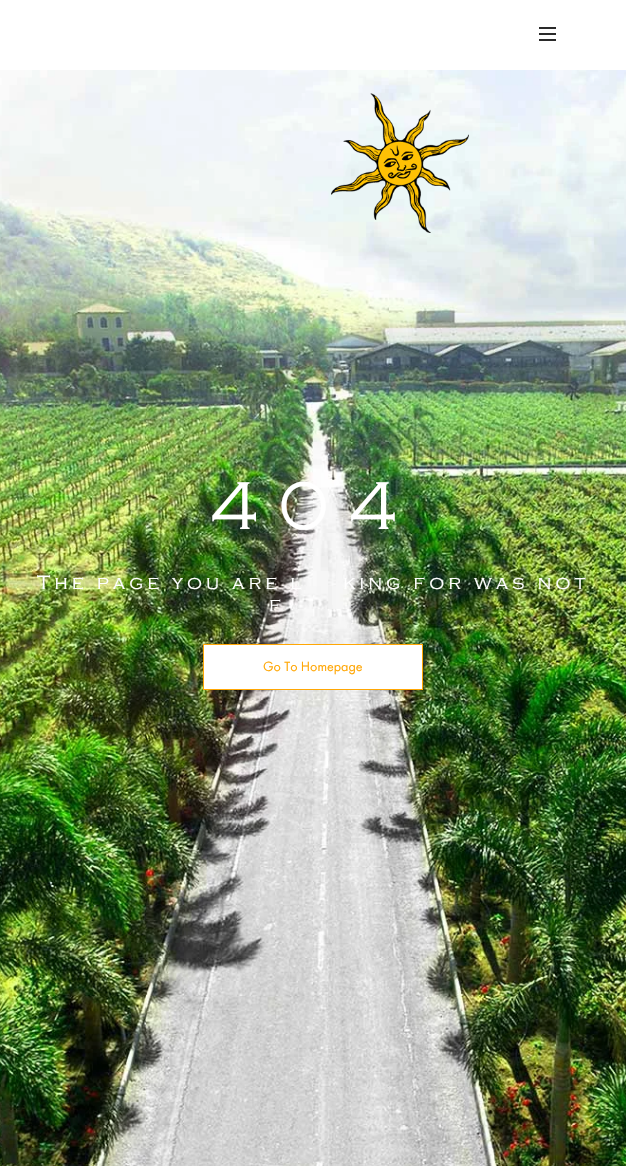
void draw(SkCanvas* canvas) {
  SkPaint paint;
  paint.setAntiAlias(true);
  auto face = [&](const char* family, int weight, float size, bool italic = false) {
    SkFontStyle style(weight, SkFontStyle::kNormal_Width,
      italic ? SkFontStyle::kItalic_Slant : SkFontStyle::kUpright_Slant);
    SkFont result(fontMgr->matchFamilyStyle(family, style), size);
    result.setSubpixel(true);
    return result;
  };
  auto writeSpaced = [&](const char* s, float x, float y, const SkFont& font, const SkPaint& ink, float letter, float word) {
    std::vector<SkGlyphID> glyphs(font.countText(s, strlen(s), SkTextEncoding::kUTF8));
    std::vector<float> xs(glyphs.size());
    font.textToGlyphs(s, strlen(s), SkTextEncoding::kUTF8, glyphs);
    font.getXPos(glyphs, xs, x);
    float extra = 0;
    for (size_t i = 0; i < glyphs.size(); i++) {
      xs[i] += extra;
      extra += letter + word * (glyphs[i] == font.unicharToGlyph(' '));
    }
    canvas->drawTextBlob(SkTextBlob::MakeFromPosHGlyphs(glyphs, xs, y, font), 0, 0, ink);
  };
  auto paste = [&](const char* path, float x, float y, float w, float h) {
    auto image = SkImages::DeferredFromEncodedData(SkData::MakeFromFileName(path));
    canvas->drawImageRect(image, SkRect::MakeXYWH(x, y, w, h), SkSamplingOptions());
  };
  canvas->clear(0xffffffff);
  {
    const struct { float x, y, w, h; SkColor color; } items[] = {
      {539, 27, 17, 2, 0xff2a2a2a},
      {539, 39, 17, 2, 0xff2a2a2a},
      {539, 33, 17, 2, 0xff2a2a2a},
    };
    for (auto [x, y, w, h, color] : items) {
      paint.setColor(color);
      canvas->drawRect(SkRect::MakeXYWH(x, y, w, h), paint);
    }
  }
  paste("img/2.png", 0, 70, 626, 1096);
  paste("img/1.png", 331, 93, 138, 140);
  paint.setColor(0xffffffff);
  canvas->drawRect(SkRect::MakeXYWH(203.5f, 644.5f, 219, 45), paint);
  paint.setStroke(true);
  paint.setStrokeWidth(1);
  paint.setColor(0xffffa705);
  canvas->drawRect(SkRect::MakeXYWH(203.5f, 644.5f, 219, 45), paint);
  auto f0 = face("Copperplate", 300, 70);
  paint.setStroke(false);
  paint.setColor(0xffffffff);
  writeSpaced("404", 209, 529, f0, paint, 19, 0);
  auto f1 = face("Copperplate", 300, 20);
  {
    const struct { const char* s; float x, y; } items[] = {
      {"The page you are l", 37, 589},
      {"king for was not", 343, 589},
      {"f", 269, 611},
    };
    for (auto [s, x, y] : items) {
      writeSpaced(s, x, y, f1, paint, 4, 0);
    }
  }
  auto f2 = face("Futura PT", 400, 14);
  paint.setColor(0xffffa705);
  canvas->drawString("Go To Homepage", 263, 671, f2, paint);
}
